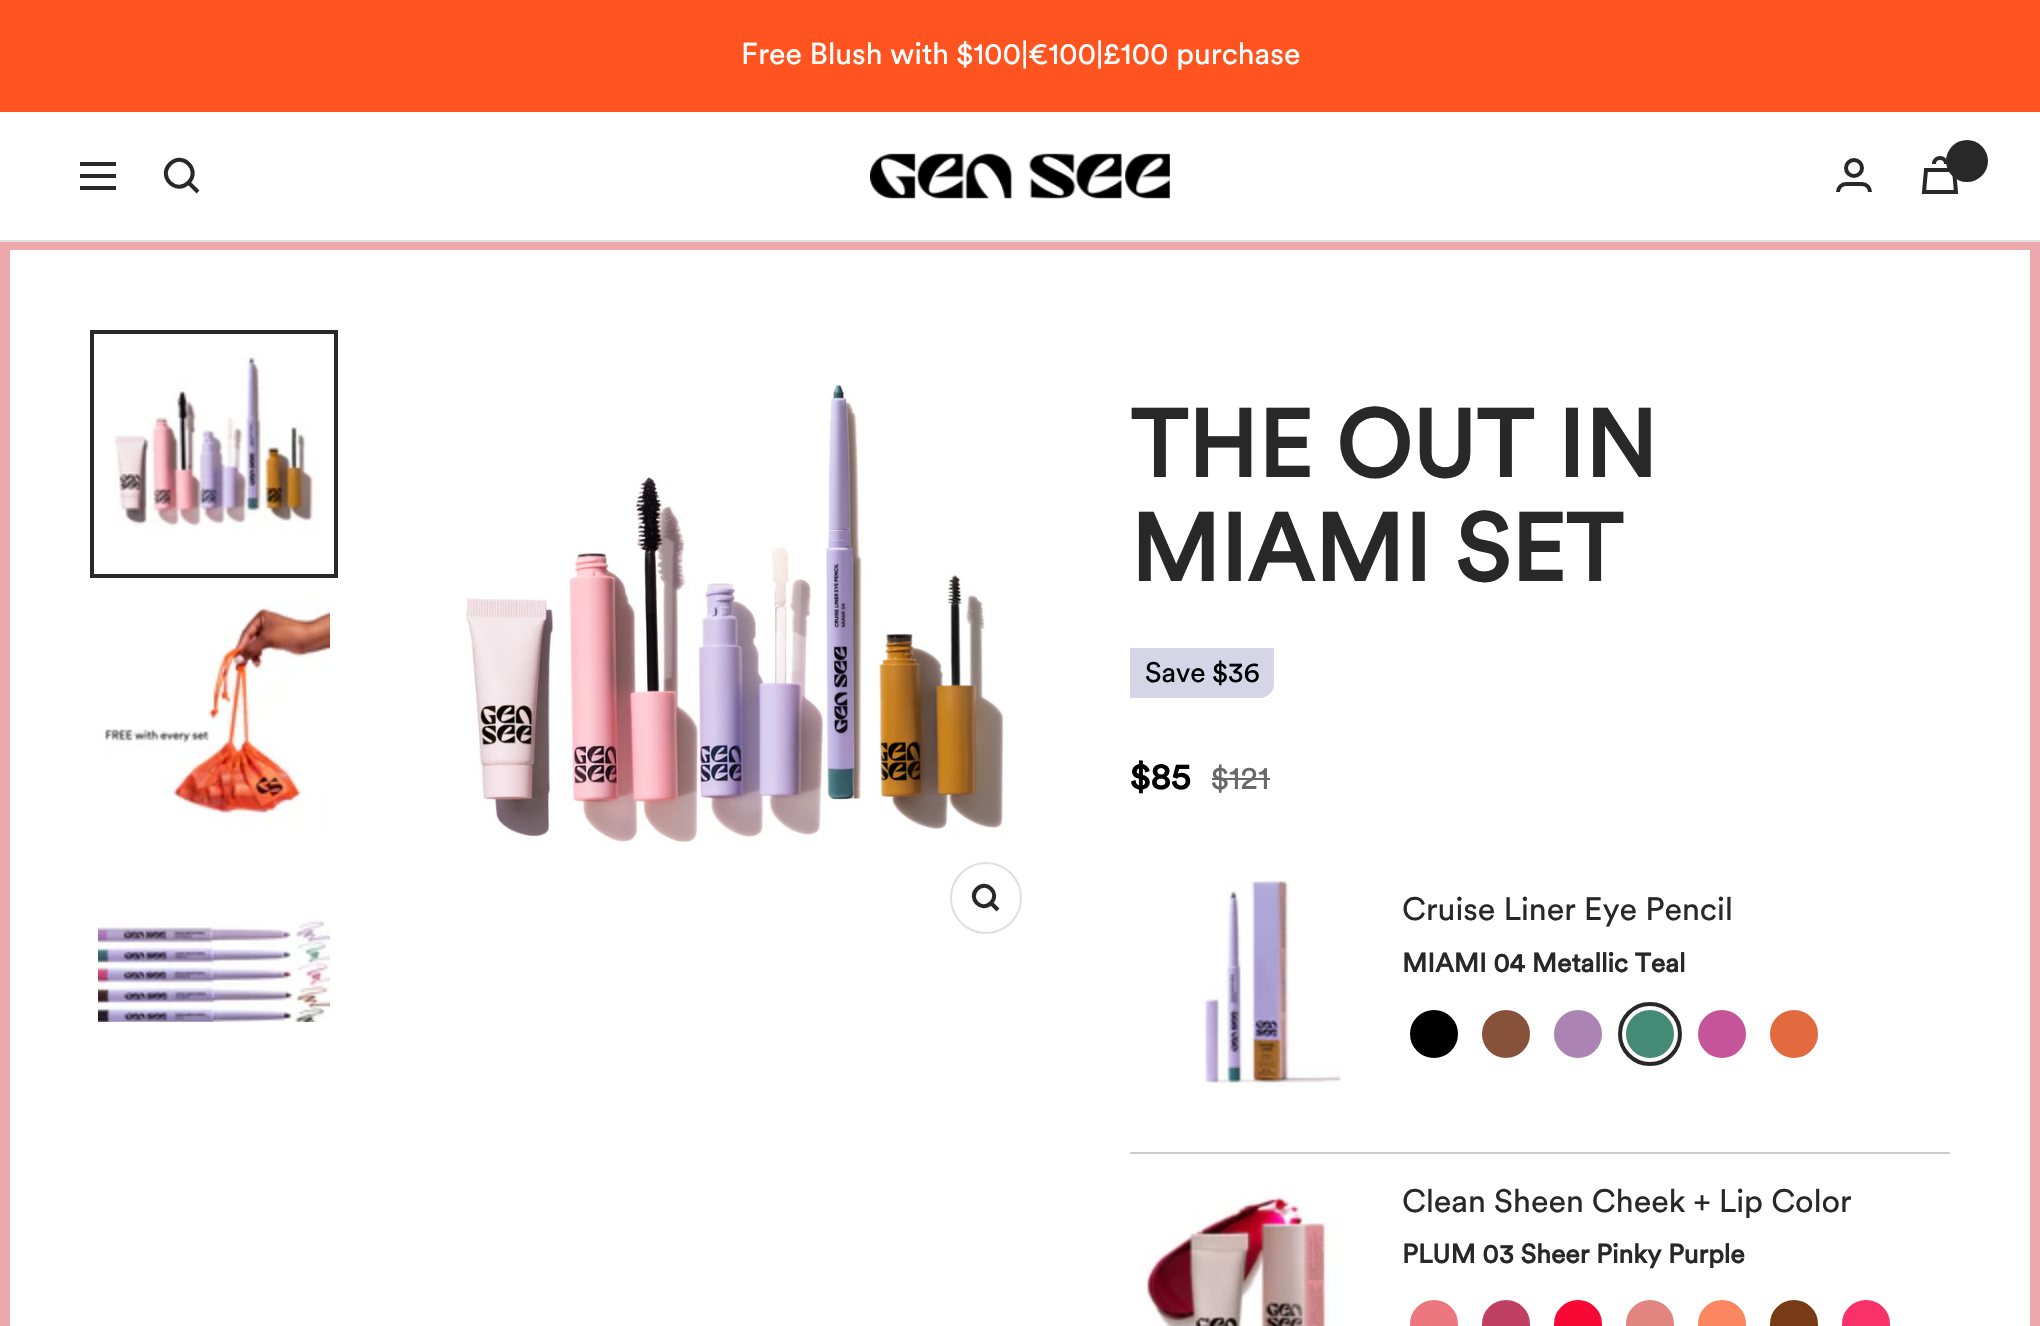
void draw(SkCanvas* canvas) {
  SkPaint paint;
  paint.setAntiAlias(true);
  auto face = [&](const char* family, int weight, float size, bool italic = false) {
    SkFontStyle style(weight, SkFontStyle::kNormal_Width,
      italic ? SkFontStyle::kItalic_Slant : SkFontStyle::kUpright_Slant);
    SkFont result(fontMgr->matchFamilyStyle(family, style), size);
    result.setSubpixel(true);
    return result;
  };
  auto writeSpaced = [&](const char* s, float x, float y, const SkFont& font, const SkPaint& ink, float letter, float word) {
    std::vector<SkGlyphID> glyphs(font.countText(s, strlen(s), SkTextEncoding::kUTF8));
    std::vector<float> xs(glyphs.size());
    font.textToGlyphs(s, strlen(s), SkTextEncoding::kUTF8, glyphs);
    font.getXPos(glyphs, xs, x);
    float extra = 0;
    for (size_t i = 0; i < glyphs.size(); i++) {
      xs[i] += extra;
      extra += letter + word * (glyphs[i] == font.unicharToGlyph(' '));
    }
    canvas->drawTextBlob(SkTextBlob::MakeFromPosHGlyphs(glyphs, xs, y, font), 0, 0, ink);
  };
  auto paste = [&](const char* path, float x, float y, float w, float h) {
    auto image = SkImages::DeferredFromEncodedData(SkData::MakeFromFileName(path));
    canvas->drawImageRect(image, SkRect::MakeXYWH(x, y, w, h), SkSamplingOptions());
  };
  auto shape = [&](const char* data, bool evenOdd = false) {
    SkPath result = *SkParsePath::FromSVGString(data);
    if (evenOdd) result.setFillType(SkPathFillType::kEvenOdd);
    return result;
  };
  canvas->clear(0xffffffff);
  paint.setColor(0xffff541f);
  canvas->drawRect(SkRect::MakeXYWH(0, 0, 2040, 112), paint);
  paint.setStroke(true);
  paint.setStrokeWidth(10);
  paint.setColor(0xffeca8ad);
  canvas->drawRect(SkRect::MakeXYWH(5, 245, 2030, 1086), paint);
  paint.setStroke(false);
  paint.setColor(0xffdfdfdf);
  canvas->drawRect(SkRect::MakeXYWH(0, 240, 2040, 2), paint);
  paint.setStroke(true);
  paint.setStrokeWidth(4);
  paint.setColor(0xff282828);
  canvas->drawPath(shape("M80 164H116M80 188H116ZM80 176H116Z"), paint);
  canvas->drawPath(shape("M188.5 182.5C201 170 182.5 151.5 170 164C157.5 176.5 176 195 188.5 182.5ZM188.5 182.5L198 192"), paint);
  paste("img/1.png", 870, 153, 300, 46);
  canvas->drawCircle(1854, 168, 8, paint);
  canvas->drawPath(shape("M1838 192C1838 187.5 1841.5 184 1846 184H1862C1866.5 184 1870 187.5 1870 192"), paint);
  canvas->drawPath(shape("M1926 170H1954L1956 192H1924ZM1946 164C1946 156 1934 156 1934 164"), paint);
  paint.setStroke(false);
  canvas->drawCircle(1967, 161, 21, paint);
  paste("img/2.png", 114, 357, 208, 173);
  paint.setStroke(true);
  canvas->drawRect(SkRect::MakeXYWH(92, 332, 244, 244), paint);
  paste("img/3.png", 103, 602, 227, 224);
  paste("img/4.png", 98, 920, 232, 102);
  paste("img/5.png", 465, 384, 540, 461);
  paint.setStrokeWidth(2);
  paint.setColor(0xffdfdfdf);
  canvas->drawCircle(986, 898, 35, paint);
  paint.setStrokeWidth(4);
  paint.setColor(0xff282828);
  canvas->drawPath(shape("M991 903C1000.5 893.5 986.5 879.5 977 889C967.5 898.5 981.5 912.5 991 903ZM991 903L998 910"), paint);
  paint.setStroke(false);
  paint.setColor(0xffd6d5e8);
  canvas->drawPath(shape("M1130 648H1274V684C1274 691.5 1267.5 698 1260 698H1130Z"), paint);
  paint.setColor(0xff696969);
  canvas->drawRect(SkRect::MakeXYWH(1212, 778, 58, 2), paint);
  paint.setColor(0xffcccccc);
  canvas->drawRect(SkRect::MakeXYWH(1130, 1152, 820, 2), paint);
  paste("img/6.png", 1202, 880, 140, 206);
  paint.setColor(0xff000000);
  canvas->drawCircle(1434, 1034, 29, paint);
  paint.setStroke(true);
  paint.setStrokeWidth(6);
  paint.setColor(0xffffffff);
  canvas->drawCircle(1434, 1034, 29, paint);
  paint.setStrokeWidth(4);
  canvas->drawCircle(1434, 1034, 26, paint);
  paint.setStroke(false);
  paint.setColor(0xff87513a);
  canvas->drawCircle(1506, 1034, 29, paint);
  paint.setStroke(true);
  paint.setStrokeWidth(6);
  paint.setColor(0xffffffff);
  canvas->drawCircle(1506, 1034, 29, paint);
  paint.setStrokeWidth(4);
  canvas->drawCircle(1506, 1034, 26, paint);
  paint.setStroke(false);
  paint.setColor(0xffab84b4);
  canvas->drawCircle(1578, 1034, 29, paint);
  paint.setStroke(true);
  paint.setStrokeWidth(6);
  paint.setColor(0xffffffff);
  canvas->drawCircle(1578, 1034, 29, paint);
  paint.setStrokeWidth(4);
  canvas->drawCircle(1578, 1034, 26, paint);
  paint.setStroke(false);
  paint.setColor(0xff458a75);
  canvas->drawCircle(1650, 1034, 29, paint);
  paint.setStroke(true);
  paint.setStrokeWidth(6);
  paint.setColor(0xffffffff);
  canvas->drawCircle(1650, 1034, 29, paint);
  paint.setStrokeWidth(4);
  canvas->drawCircle(1650, 1034, 26, paint);
  paint.setColor(0xff282828);
  canvas->drawCircle(1650, 1034, 30, paint);
  paint.setStroke(false);
  paint.setColor(0xffc55598);
  canvas->drawCircle(1722, 1034, 29, paint);
  paint.setStroke(true);
  paint.setStrokeWidth(6);
  paint.setColor(0xffffffff);
  canvas->drawCircle(1722, 1034, 29, paint);
  paint.setStrokeWidth(4);
  canvas->drawCircle(1722, 1034, 26, paint);
  paint.setStroke(false);
  paint.setColor(0xffe16b3f);
  canvas->drawCircle(1794, 1034, 29, paint);
  paint.setStroke(true);
  paint.setStrokeWidth(6);
  paint.setColor(0xffffffff);
  canvas->drawCircle(1794, 1034, 29, paint);
  paint.setStrokeWidth(4);
  canvas->drawCircle(1794, 1034, 26, paint);
  paste("img/7.png", 1145, 1195, 193, 131);
  paint.setStroke(false);
  paint.setColor(0xffed777e);
  canvas->drawCircle(1434, 1324, 29, paint);
  paint.setStroke(true);
  paint.setStrokeWidth(6);
  paint.setColor(0xffffffff);
  canvas->drawCircle(1434, 1324, 29, paint);
  paint.setStrokeWidth(4);
  canvas->drawCircle(1434, 1324, 26, paint);
  paint.setStroke(false);
  paint.setColor(0xffc04063);
  canvas->drawCircle(1506, 1324, 29, paint);
  paint.setStroke(true);
  paint.setStrokeWidth(6);
  paint.setColor(0xffffffff);
  canvas->drawCircle(1506, 1324, 29, paint);
  paint.setStrokeWidth(4);
  canvas->drawCircle(1506, 1324, 26, paint);
  paint.setStroke(false);
  paint.setColor(0xfff80834);
  canvas->drawCircle(1578, 1324, 29, paint);
  paint.setStroke(true);
  paint.setStrokeWidth(6);
  paint.setColor(0xffffffff);
  canvas->drawCircle(1578, 1324, 29, paint);
  paint.setStrokeWidth(4);
  canvas->drawCircle(1578, 1324, 26, paint);
  paint.setStroke(false);
  paint.setColor(0xffe18581);
  canvas->drawCircle(1650, 1324, 29, paint);
  paint.setStroke(true);
  paint.setStrokeWidth(6);
  paint.setColor(0xffffffff);
  canvas->drawCircle(1650, 1324, 29, paint);
  paint.setStrokeWidth(4);
  canvas->drawCircle(1650, 1324, 26, paint);
  paint.setStroke(false);
  paint.setColor(0xfffa875f);
  canvas->drawCircle(1722, 1324, 29, paint);
  paint.setStroke(true);
  paint.setStrokeWidth(6);
  paint.setColor(0xffffffff);
  canvas->drawCircle(1722, 1324, 29, paint);
  paint.setStrokeWidth(4);
  canvas->drawCircle(1722, 1324, 26, paint);
  paint.setStroke(false);
  paint.setColor(0xff793b15);
  canvas->drawCircle(1794, 1324, 29, paint);
  paint.setStroke(true);
  paint.setStrokeWidth(6);
  paint.setColor(0xffffffff);
  canvas->drawCircle(1794, 1324, 29, paint);
  paint.setStrokeWidth(4);
  canvas->drawCircle(1794, 1324, 26, paint);
  paint.setStroke(false);
  paint.setColor(0xfff83269);
  canvas->drawCircle(1866, 1324, 29, paint);
  paint.setStroke(true);
  paint.setStrokeWidth(6);
  paint.setColor(0xffffffff);
  canvas->drawCircle(1866, 1324, 29, paint);
  paint.setStrokeWidth(4);
  canvas->drawCircle(1866, 1324, 26, paint);
  auto f0 = face("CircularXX", 400, 30);
  paint.setStroke(false);
  canvas->drawString("Free Blush with $100|€100|£100 purchase", 741, 64, f0, paint);
  auto f1 = face("CircularXX", 700, 94);
  paint.setColor(0xff282828);
  canvas->drawString("THE OUT IN", 1130, 477, f1, paint);
  canvas->drawString("MIAMI SET", 1130, 581, f1, paint);
  auto f2 = face("CircularXX", 400, 28);
  paint.setColor(0xff000000);
  writeSpaced("Save $36", 1145, 682, f2, paint, -0.25f, 0);
  auto f3 = face("CircularXX", 700, 36);
  canvas->drawString("$85", 1130, 789, f3, paint);
  auto f4 = face("CircularXX", 400, 32);
  paint.setColor(0xff696969);
  canvas->drawString("$121", 1211, 789, f4, paint);
  paint.setColor(0xff282828);
  canvas->drawString("Cruise Liner Eye Pencil", 1402, 920, f4, paint);
  auto f5 = face("CircularXX", 700, 26.4f);
  canvas->drawString("MIAMI 04 Metallic Teal", 1402, 972, f5, paint);
  canvas->drawString("Clean Sheen Cheek + Lip Color", 1402, 1212, f4, paint);
  canvas->drawString("PLUM 03 Sheer Pinky Purple", 1402, 1263, f5, paint);
}
